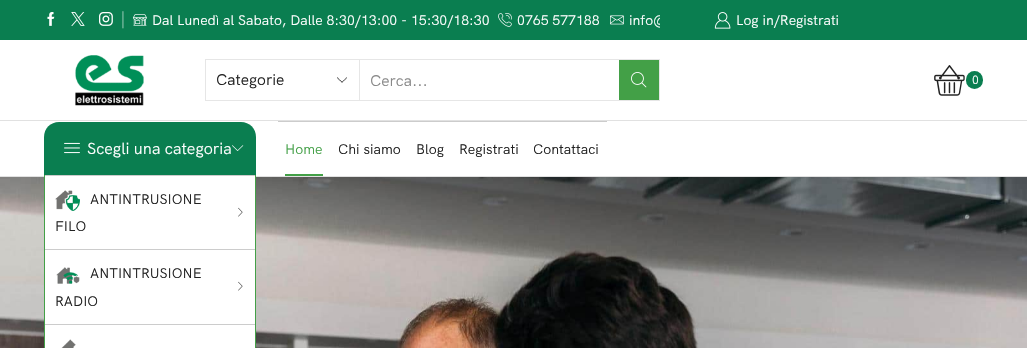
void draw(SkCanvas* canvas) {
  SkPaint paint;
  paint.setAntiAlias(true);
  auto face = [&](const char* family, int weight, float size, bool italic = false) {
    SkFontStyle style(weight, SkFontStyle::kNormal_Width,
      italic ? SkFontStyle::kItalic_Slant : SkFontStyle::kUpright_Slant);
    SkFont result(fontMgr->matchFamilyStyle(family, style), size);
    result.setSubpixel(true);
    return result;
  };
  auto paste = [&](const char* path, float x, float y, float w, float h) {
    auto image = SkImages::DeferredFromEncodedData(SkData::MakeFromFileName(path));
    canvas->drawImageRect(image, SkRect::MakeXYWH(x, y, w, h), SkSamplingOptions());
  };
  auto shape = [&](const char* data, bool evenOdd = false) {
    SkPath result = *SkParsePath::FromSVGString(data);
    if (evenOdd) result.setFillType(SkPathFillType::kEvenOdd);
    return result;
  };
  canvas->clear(0xffffffff);
  paint.setColor(0xff0a7e50);
  canvas->drawRect(SkRect::MakeXYWH(0, 0, 1027, 40), paint);
  paste("img/1.png", 47, 12, 8, 14);
  paste("img/2.png", 71, 12, 14, 14);
  paste("img/3.png", 99, 12, 14, 14);
  paste("img/4.png", 133, 14, 14, 12);
  paste("img/5.png", 498, 13, 14, 14);
  paste("img/6.png", 610, 15, 14, 10);
  paste("img/7.png", 714, 12, 17, 17);
  paint.setColor(0xffe1e1e1);
  canvas->drawRect(SkRect::MakeXYWH(0, 120, 1027, 1), paint);
  paste("img/8.png", 75, 55, 69, 51);
  paint.setStroke(true);
  paint.setStrokeWidth(1);
  paint.setColor(0xffe6e6e6);
  canvas->drawRect(SkRect::MakeXYWH(205.5f, 59.5f, 454, 41), paint);
  paste("img/9.png", 337, 77, 10, 6);
  paint.setStroke(false);
  canvas->drawRect(SkRect::MakeXYWH(359, 60, 1, 40), paint);
  paint.setColor(0xff43a047);
  canvas->drawRect(SkRect::MakeXYWH(619, 60, 40, 40), paint);
  paste("img/10.png", 631, 72, 16, 16);
  paste("img/11.png", 934, 65, 31, 31);
  paint.setColor(0xff0a7e50);
  canvas->drawRoundRect(SkRect::MakeXYWH(966, 71, 17, 18), 8.5f, 8.5f, paint);
  paint.setColor(0xffe1e1e1);
  canvas->drawRect(SkRect::MakeXYWH(0, 176, 1027, 1), paint);
  paint.setColor(0xff0a7e50);
  canvas->drawPath(shape("M59 122H241C249.5 122 256 128.5 256 137V175H44V137C44 128.5 50.5 122 59 122Z"), paint);
  paste("img/12.png", 64, 142, 16, 12);
  paste("img/13.png", 232, 145, 12, 6);
  paste("img/18.png", 0, 177, 1027, 171);
  {
    const struct { float x, y, w, h; SkColor color; } items[] = {
      {45, 176, 210, 172, 0xffffffff},
      {255, 175, 1, 173, 0xff43a047},
      {44, 175, 1, 173, 0xff43a047},
      {45, 175, 210, 1, 0xffcccccc},
    };
    for (auto [x, y, w, h, color] : items) {
      paint.setColor(color);
      canvas->drawRect(SkRect::MakeXYWH(x, y, w, h), paint);
    }
  }
  paste("img/14.png", 55, 190, 25, 21);
  paste("img/15.png", 238, 207, 5, 10);
  canvas->drawRect(SkRect::MakeXYWH(45, 249, 210, 1), paint);
  paste("img/16.png", 56, 267, 24, 17);
  paste("img/15.png", 238, 281, 5, 10);
  canvas->drawRect(SkRect::MakeXYWH(45, 324, 210, 1), paint);
  paste("img/17.png", 61, 339, 15, 9);
  canvas->drawRect(SkRect::MakeXYWH(278, 121, 329, 1), paint);
  paint.setColor(0xff43a047);
  canvas->drawRect(SkRect::MakeXYWH(285, 174, 38, 2), paint);
  auto f0 = face("Liberation Serif", 400, 13.9f);
  paint.setColor(0xff85bfa8);
  canvas->drawString("│", 118, 24, f0, paint);
  auto f1 = face("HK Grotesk", 400, 13.9f);
  paint.setColor(0xffffffff);
  canvas->drawString("Dal Lunedì al Sabato, Dalle 8:30/13:00 - 15:30/18:30", 152, 25, f1, paint);
  canvas->drawString("0765 577188", 517, 25, f1, paint);
  canvas->save();
  canvas->clipRect(SkRect::MakeXYWH(133, 7, 527, 26));
  canvas->drawString("info@", 629, 25, f1, paint);
  canvas->restore();
  canvas->drawString("Log in/Registrati", 736, 25, f1, paint);
  auto f2 = face("HK Grotesk", 400, 15.5f);
  paint.setColor(0xff222222);
  canvas->drawString("Categorie", 216, 85, f2, paint);
  paint.setColor(0xff888888);
  canvas->drawString("Cerca...", 370, 86, f2, paint);
  auto f3 = face("HK Grotesk", 400, 12);
  paint.setColor(0xffffffff);
  canvas->drawString("0", 972, 84, f3, paint);
  auto f4 = face("HK Grotesk", 400, 16);
  canvas->drawString("Scegli una categoria", 87, 154, f4, paint);
  auto f5 = face("HK Grotesk", 400, 14);
  paint.setColor(0xff222222);
  {
    const struct { const char* s; float x, y; } items[] = {
      {"ANTINTRUSIONE", 90, 204},
      {"FILO", 55, 231},
      {"ANTINTRUSIONE", 90, 278},
      {"RADIO", 55, 306},
    };
    for (auto [s, x, y] : items) {
      canvas->drawString(s, x, y, f5, paint);
    }
  }
  paint.setColor(0xff43a047);
  canvas->drawString("Home", 285, 154, f5, paint);
  paint.setColor(0xff222222);
  {
    const struct { const char* s; float x, y; } items[] = {
      {"Chi siamo", 338, 154},
      {"Blog", 416, 154},
      {"Registrati", 459, 154},
      {"Contattaci", 533, 154},
    };
    for (auto [s, x, y] : items) {
      canvas->drawString(s, x, y, f5, paint);
    }
  }
}
